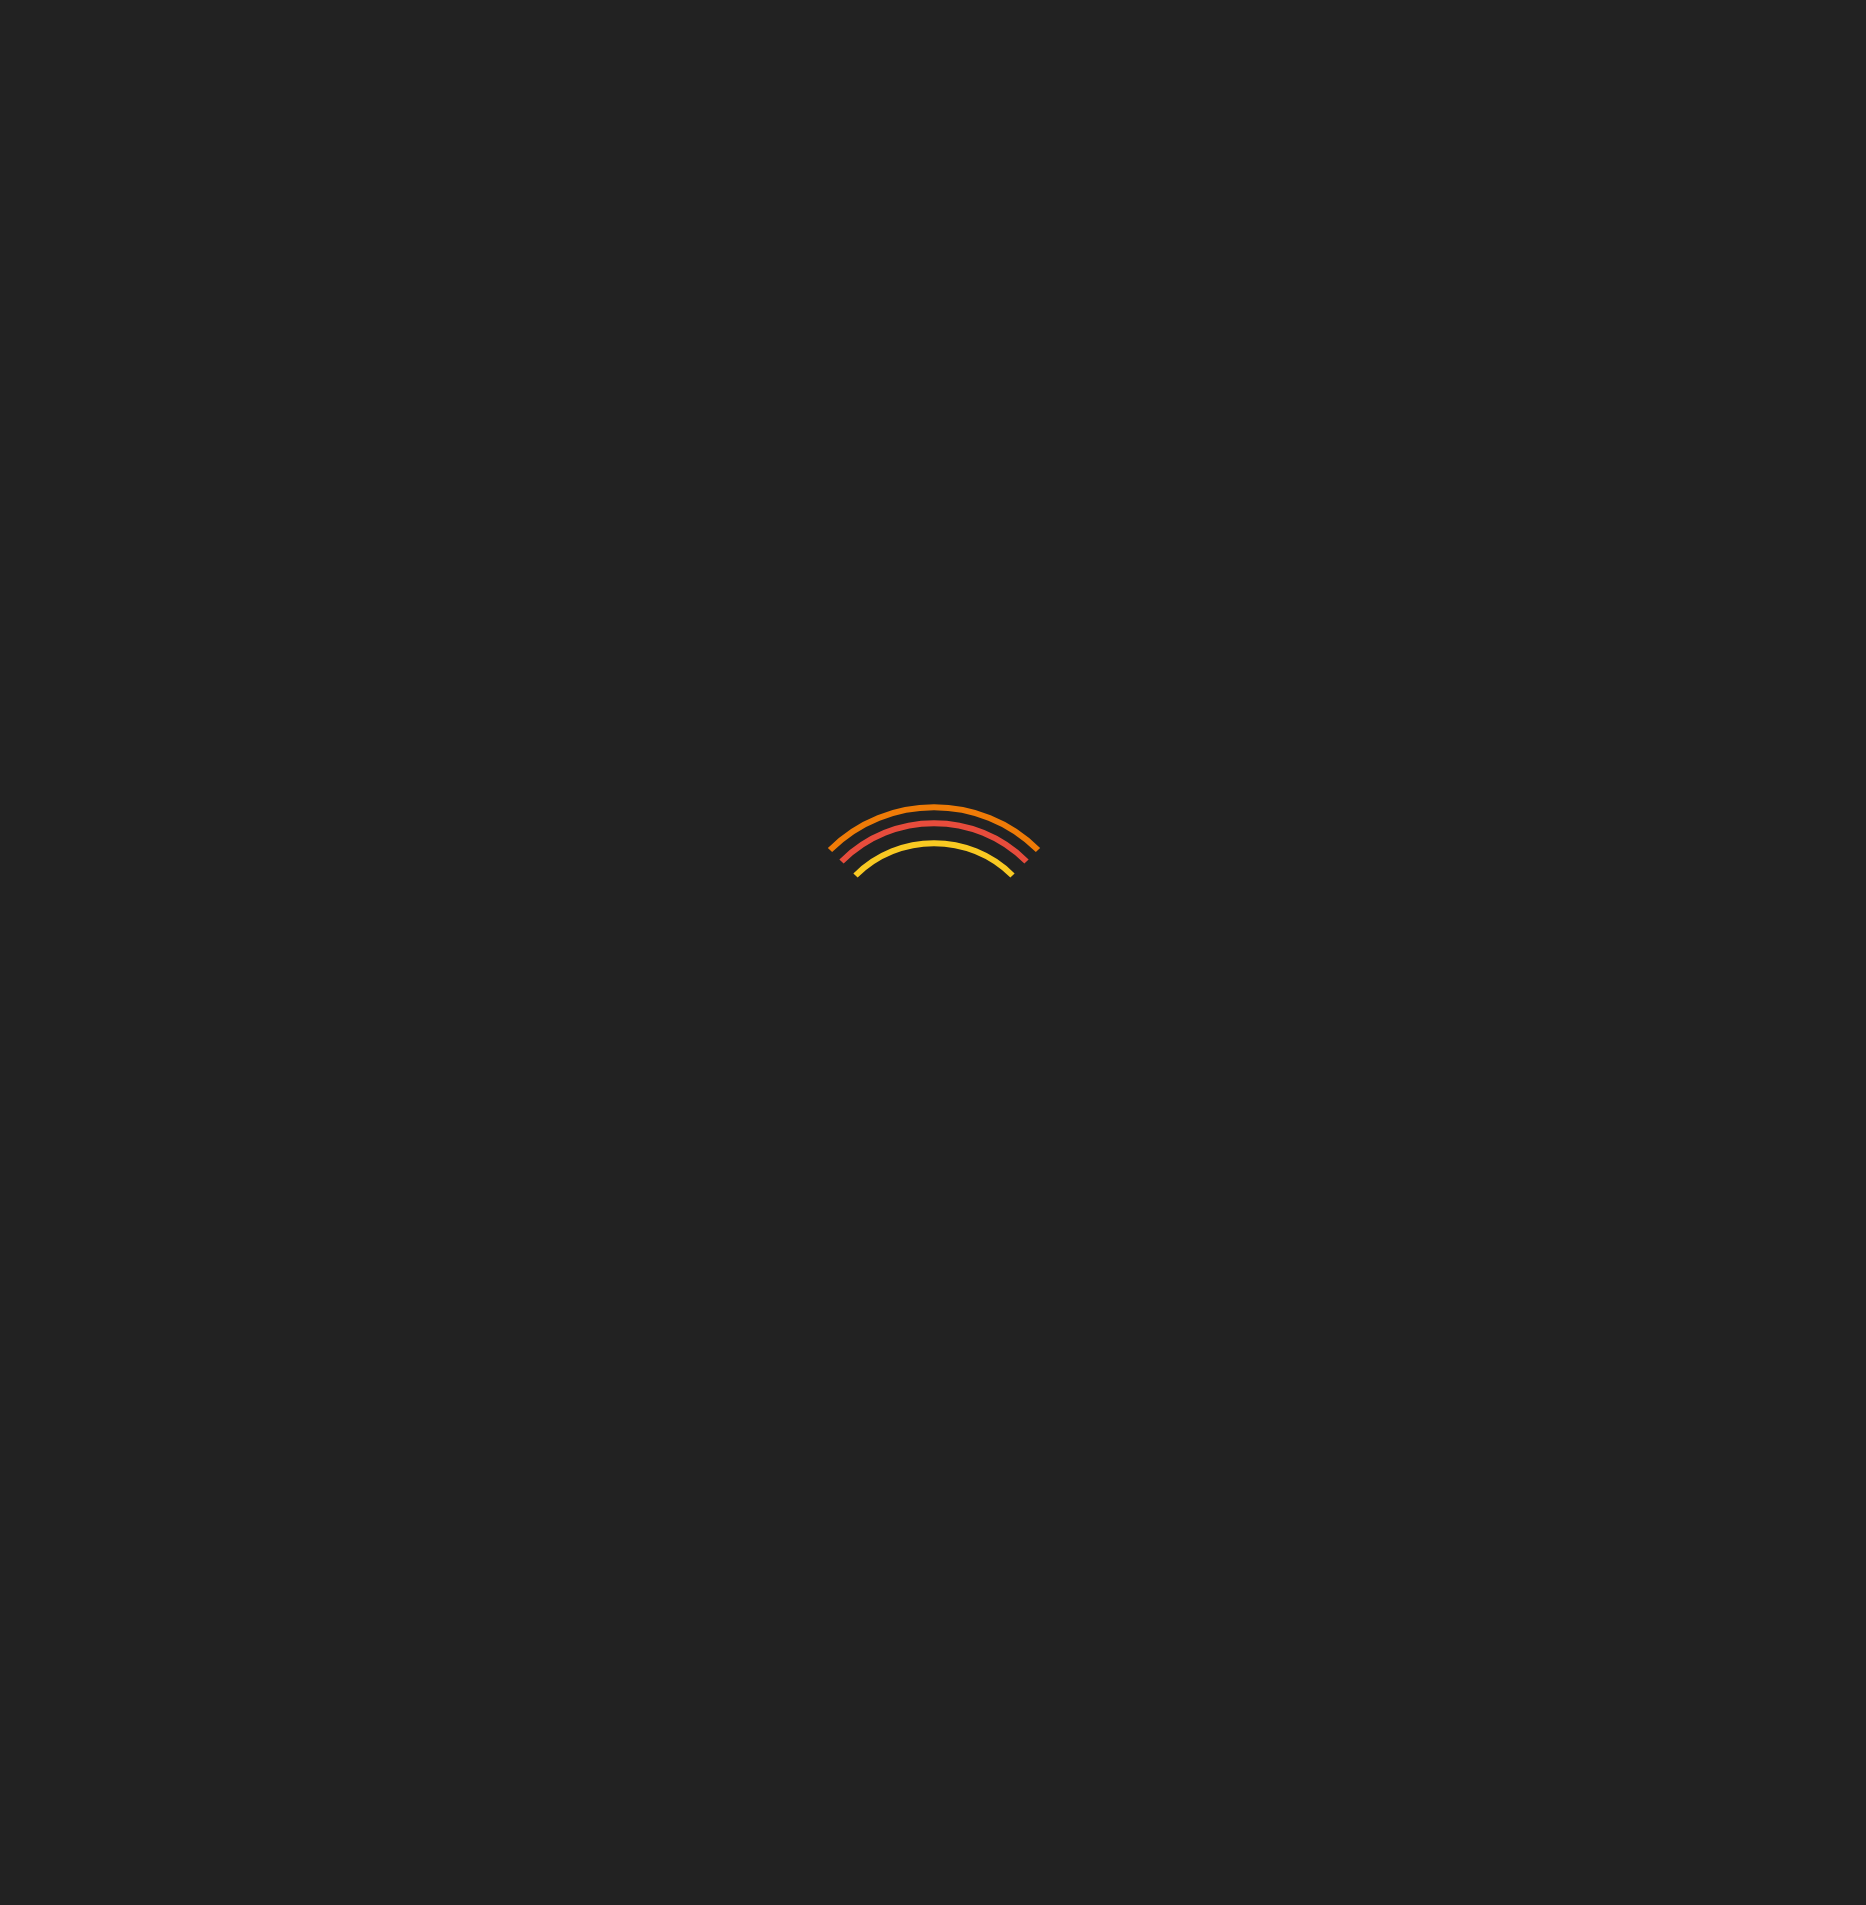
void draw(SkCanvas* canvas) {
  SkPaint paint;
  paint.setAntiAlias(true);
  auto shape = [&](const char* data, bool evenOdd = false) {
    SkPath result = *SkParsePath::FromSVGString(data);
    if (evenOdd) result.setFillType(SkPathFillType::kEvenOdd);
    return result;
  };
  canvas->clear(0xff222222);
  paint.setStroke(true);
  paint.setStrokeWidth(6);
  paint.setColor(0xffef7b07);
  canvas->drawPath(shape("M830 850C887 793 981 793 1038 850"), paint);
  paint.setColor(0xffe74c3c);
  canvas->drawPath(shape("M841.5 861.5C892.5 810.5 975.5 810.5 1026.5 861.5"), paint);
  paint.setColor(0xfff9c922);
  canvas->drawPath(shape("M855.5 875.5C898.5 832.5 969.5 832.5 1012.5 875.5"), paint);
}
